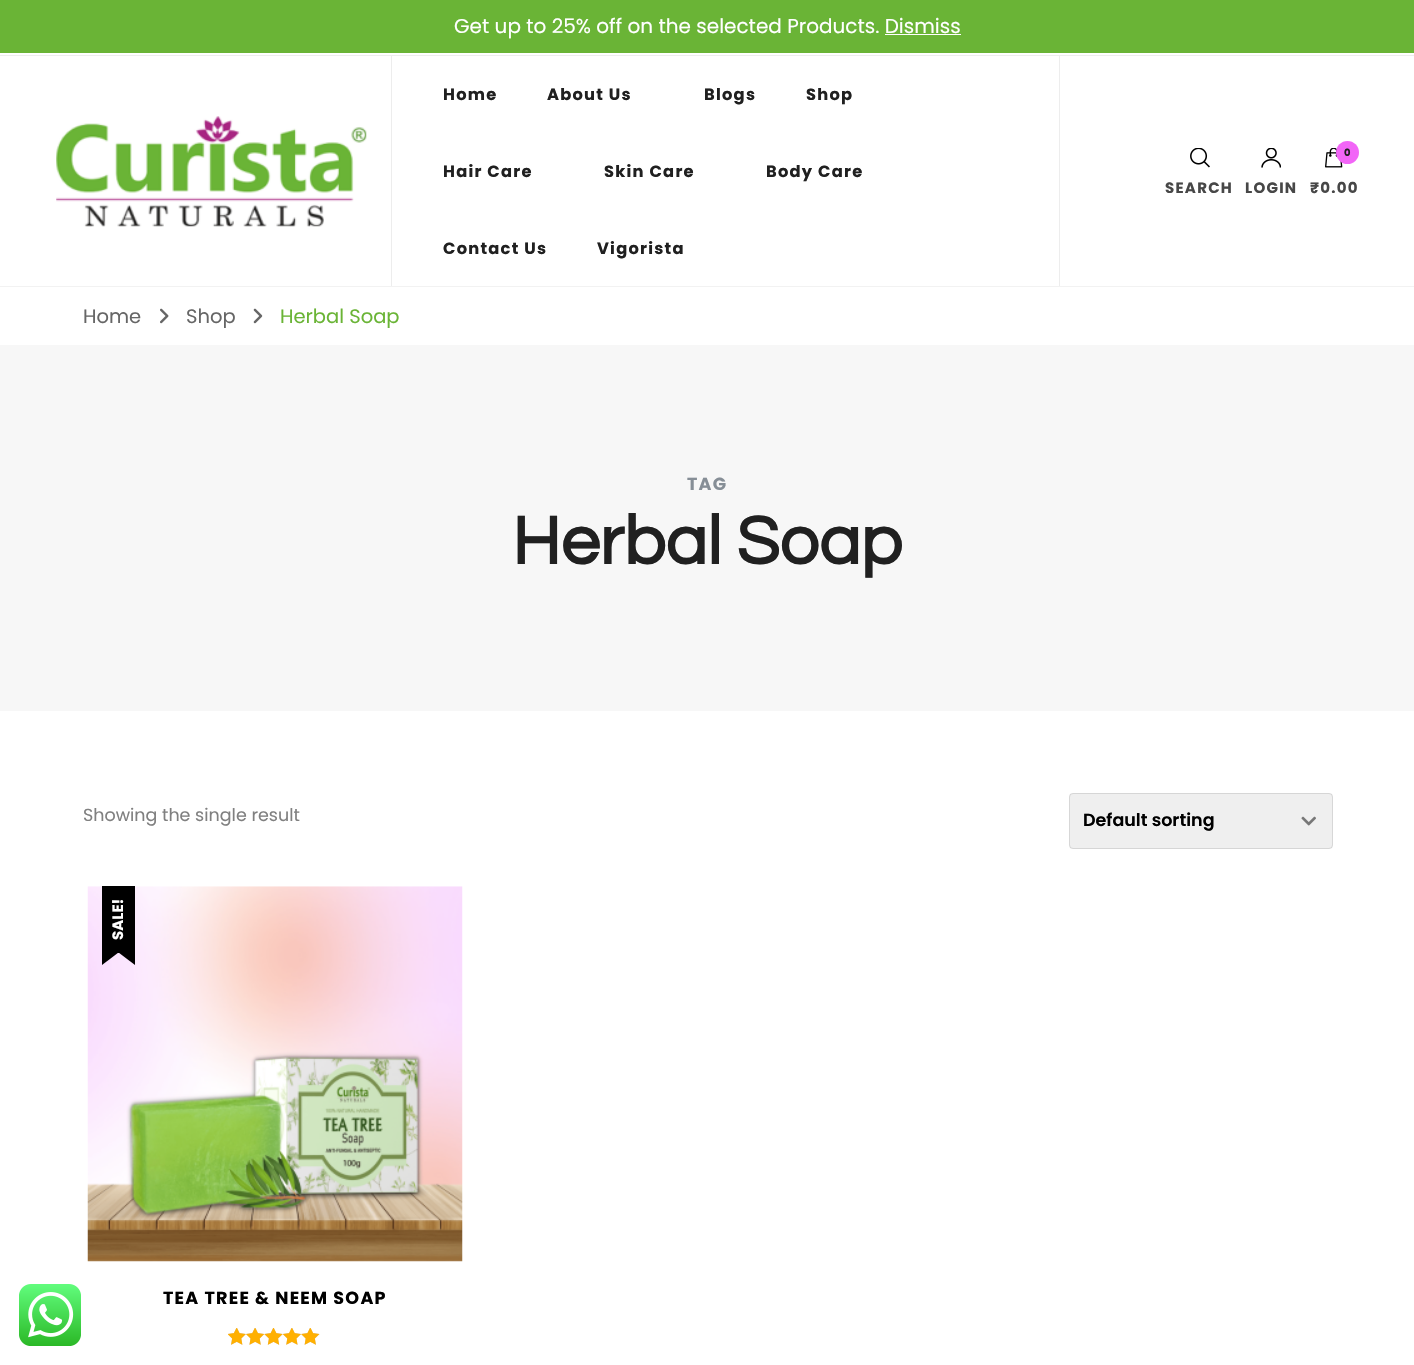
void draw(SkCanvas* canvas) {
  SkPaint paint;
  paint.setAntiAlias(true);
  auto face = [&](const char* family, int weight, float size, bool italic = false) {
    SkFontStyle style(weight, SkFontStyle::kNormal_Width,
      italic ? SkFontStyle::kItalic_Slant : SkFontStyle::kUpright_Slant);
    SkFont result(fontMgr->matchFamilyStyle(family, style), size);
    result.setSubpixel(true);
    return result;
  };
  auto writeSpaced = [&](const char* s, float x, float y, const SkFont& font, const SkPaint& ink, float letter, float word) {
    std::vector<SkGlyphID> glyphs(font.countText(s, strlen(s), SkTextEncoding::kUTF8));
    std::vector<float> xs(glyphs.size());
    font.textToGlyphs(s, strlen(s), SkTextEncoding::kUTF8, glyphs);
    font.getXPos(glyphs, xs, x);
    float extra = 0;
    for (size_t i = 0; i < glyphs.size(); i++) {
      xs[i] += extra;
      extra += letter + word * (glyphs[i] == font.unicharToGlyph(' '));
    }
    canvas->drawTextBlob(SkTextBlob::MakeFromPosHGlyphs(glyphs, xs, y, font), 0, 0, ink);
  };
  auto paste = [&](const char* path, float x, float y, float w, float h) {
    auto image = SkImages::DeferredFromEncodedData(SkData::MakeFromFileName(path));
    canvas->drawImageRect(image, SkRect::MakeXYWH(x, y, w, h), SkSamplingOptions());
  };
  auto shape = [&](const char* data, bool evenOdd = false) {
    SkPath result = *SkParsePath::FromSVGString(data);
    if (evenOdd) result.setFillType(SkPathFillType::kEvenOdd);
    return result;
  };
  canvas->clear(0xffffffff);
  {
    const struct { float x, y, w, h; SkColor color; } items[] = {
      {0, 0, 1414, 53, 0xff6ab436},
      {885, 34, 76, 1, 0xffffffff},
      {0, 55, 1414, 1, 0xffededed},
      {0, 286, 1414, 1, 0xfff2f2f2},
      {391, 56, 1, 230, 0xffededed},
    };
    for (auto [x, y, w, h, color] : items) {
      paint.setColor(color);
      canvas->drawRect(SkRect::MakeXYWH(x, y, w, h), paint);
    }
  }
  paste("img/1.png", 56, 116, 311, 111);
  canvas->drawRect(SkRect::MakeXYWH(1059, 56, 1, 230), paint);
  paste("img/2.png", 1190, 148, 20, 20);
  paste("img/3.png", 1261, 148, 20, 20);
  paste("img/4.png", 1325, 148, 18, 20);
  paint.setColor(0xfff265f7);
  canvas->drawCircle(1347.5f, 152.5f, 11.5f, paint);
  paste("img/5.png", 160, 308, 9, 16);
  paste("img/6.png", 253, 308, 10, 16);
  paint.setColor(0xfff7f7f7);
  canvas->drawRect(SkRect::MakeXYWH(0, 345, 1414, 366), paint);
  paint.setColor(0xffefefef);
  canvas->drawRoundRect(SkRect::MakeXYWH(1069, 793, 264, 56), 4, 4, paint);
  paste("img/7.png", 1301, 816, 15, 10);
  paint.setStroke(true);
  paint.setStrokeWidth(1);
  paint.setColor(0x1a000000);
  canvas->drawRoundRect(SkRect::MakeXYWH(1069.5f, 793.5f, 263, 55), 3.5f, 3.5f, paint);
  paste("img/8.png", 87, 886, 376, 376);
  paint.setStroke(false);
  paint.setColor(0xff000000);
  canvas->drawRect(SkRect::MakeXYWH(102, 886, 33, 67), paint);
  canvas->drawPath(shape("M102 952.5H118.5L102 965Z"), paint);
  canvas->drawPath(shape("M118.5 952.5H135V965Z"), paint);
  paste("img/9.png", 228, 1328, 92, 17);
  paste("img/10.png", 228, 1328, 92, 17);
  paste("img/11.png", 19, 1284, 62, 62);
  auto f0 = face("Poppins", 400, 20);
  paint.setColor(0xffffffff);
  canvas->drawString("Get up to 25% off on the selected Products. Dismiss", 454, 33, f0, paint);
  auto f1 = face("Poppins", 700, 16.25f);
  paint.setColor(0xff202020);
  {
    const struct { const char* s; float x, y; } items[] = {
      {"Home", 443, 100},
      {"About Us", 547, 100},
      {"Blogs", 704, 100},
      {"Shop", 806, 100},
      {"Hair Care", 443, 177},
      {"Skin Care", 604, 177},
      {"Body Care", 766, 177},
      {"Contact Us", 443, 254},
      {"Vigorista", 597, 254},
    };
    for (auto [s, x, y] : items) {
      writeSpaced(s, x, y, f1, paint, 1.25f, 0);
    }
  }
  auto f2 = face("Poppins", 700, 15);
  paint.setColor(0xff474747);
  writeSpaced("SEARCH", 1165, 193, f2, paint, 1.25f, 0);
  writeSpaced("LOGIN", 1245, 193, f2, paint, 1.25f, 0);
  auto f3 = face("Poppins", 700, 10);
  paint.setColor(0xff202020);
  writeSpaced("0", 1344, 156, f3, paint, 1.25f, 0);
  paint.setColor(0xff474747);
  writeSpaced("₹0.00", 1310, 193, f2, paint, 1.25f, 0);
  auto f4 = face("Poppins", 400, 19.5f);
  paint.setColor(0xff666666);
  canvas->drawString("Home", 83, 323, f4, paint);
  canvas->drawString("Shop", 186, 323, f4, paint);
  paint.setColor(0xff6ab436);
  canvas->drawString("Herbal Soap", 280, 323, f4, paint);
  auto f5 = face("Poppins", 700, 17.5f);
  paint.setColor(0xff868e96);
  writeSpaced("TAG", 687, 490, f5, paint, 1.25f, 0);
  auto f6 = face("Questrial", 700, 70);
  paint.setColor(0xff202020);
  canvas->drawString("Herbal Soap", 512, 564, f6, paint);
  auto f7 = face("Poppins", 400, 17.5f);
  paint.setColor(0xff808080);
  canvas->drawString("Showing the single result", 83, 821, f7, paint);
  auto f8 = face("Poppins", 600, 17.5f);
  paint.setColor(0xff000000);
  canvas->drawString("Default sorting", 1083, 826, f8, paint);
  paint.setColor(0xffffffff);
  canvas->save();
  canvas->rotate(-90, 123, 940);
  canvas->drawString("SALE!", 123, 940, f2, paint);
  canvas->restore();
  paint.setColor(0xff000000);
  writeSpaced("TEA TREE & NEEM SOAP", 163, 1304, f5, paint, 1.25f, 0);
}
